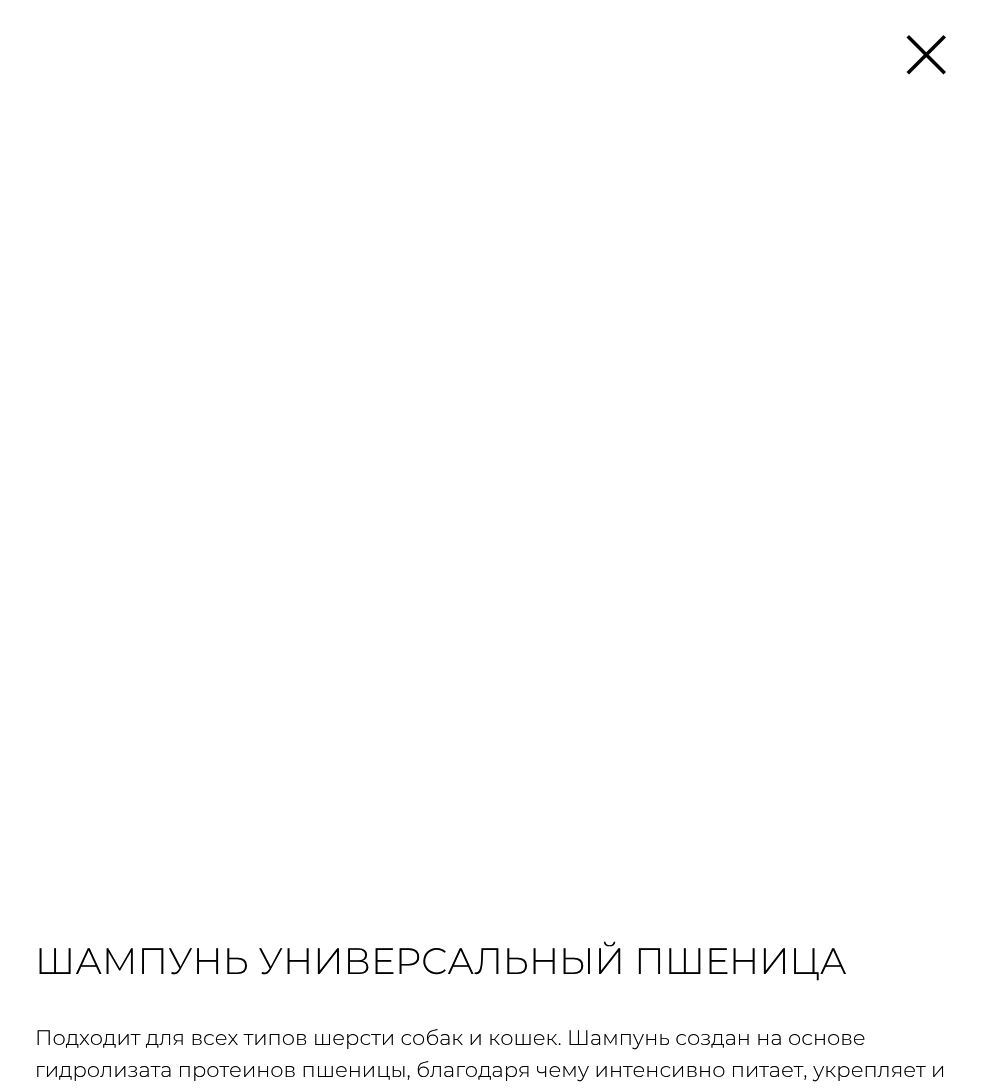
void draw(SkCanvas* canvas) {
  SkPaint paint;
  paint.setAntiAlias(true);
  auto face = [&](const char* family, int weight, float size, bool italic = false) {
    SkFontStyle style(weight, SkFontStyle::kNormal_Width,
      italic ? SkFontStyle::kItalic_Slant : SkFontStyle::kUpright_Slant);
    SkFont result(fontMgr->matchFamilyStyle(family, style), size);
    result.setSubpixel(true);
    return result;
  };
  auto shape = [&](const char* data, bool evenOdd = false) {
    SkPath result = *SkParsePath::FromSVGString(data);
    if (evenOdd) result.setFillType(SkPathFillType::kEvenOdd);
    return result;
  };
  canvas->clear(0xffffffff);
  paint.setColor(0xff000000);
  canvas->drawPath(shape("M906.5 37.5L909 35L946 72L943.5 74.5Z", true), paint);
  canvas->drawPath(shape("M943.5 35L946 37.5L909 74.5L906.5 72Z", true), paint);
  auto f0 = face("Montserrat", 300, 36.75f);
  canvas->drawString("ШАМПУНЬ УНИВЕРСАЛЬНЫЙ ПШЕНИЦА", 35, 974, f0, paint);
  auto f1 = face("Montserrat", 300, 21);
  canvas->drawString("Подходит для всех типов шерсти собак и кошек. Шампунь создан на основе", 35, 1045, f1, paint);
  canvas->drawString("гидролизата протеинов пшеницы, благодаря чему интенсивно питает, укрепляет и", 35, 1077, f1, paint);
}
